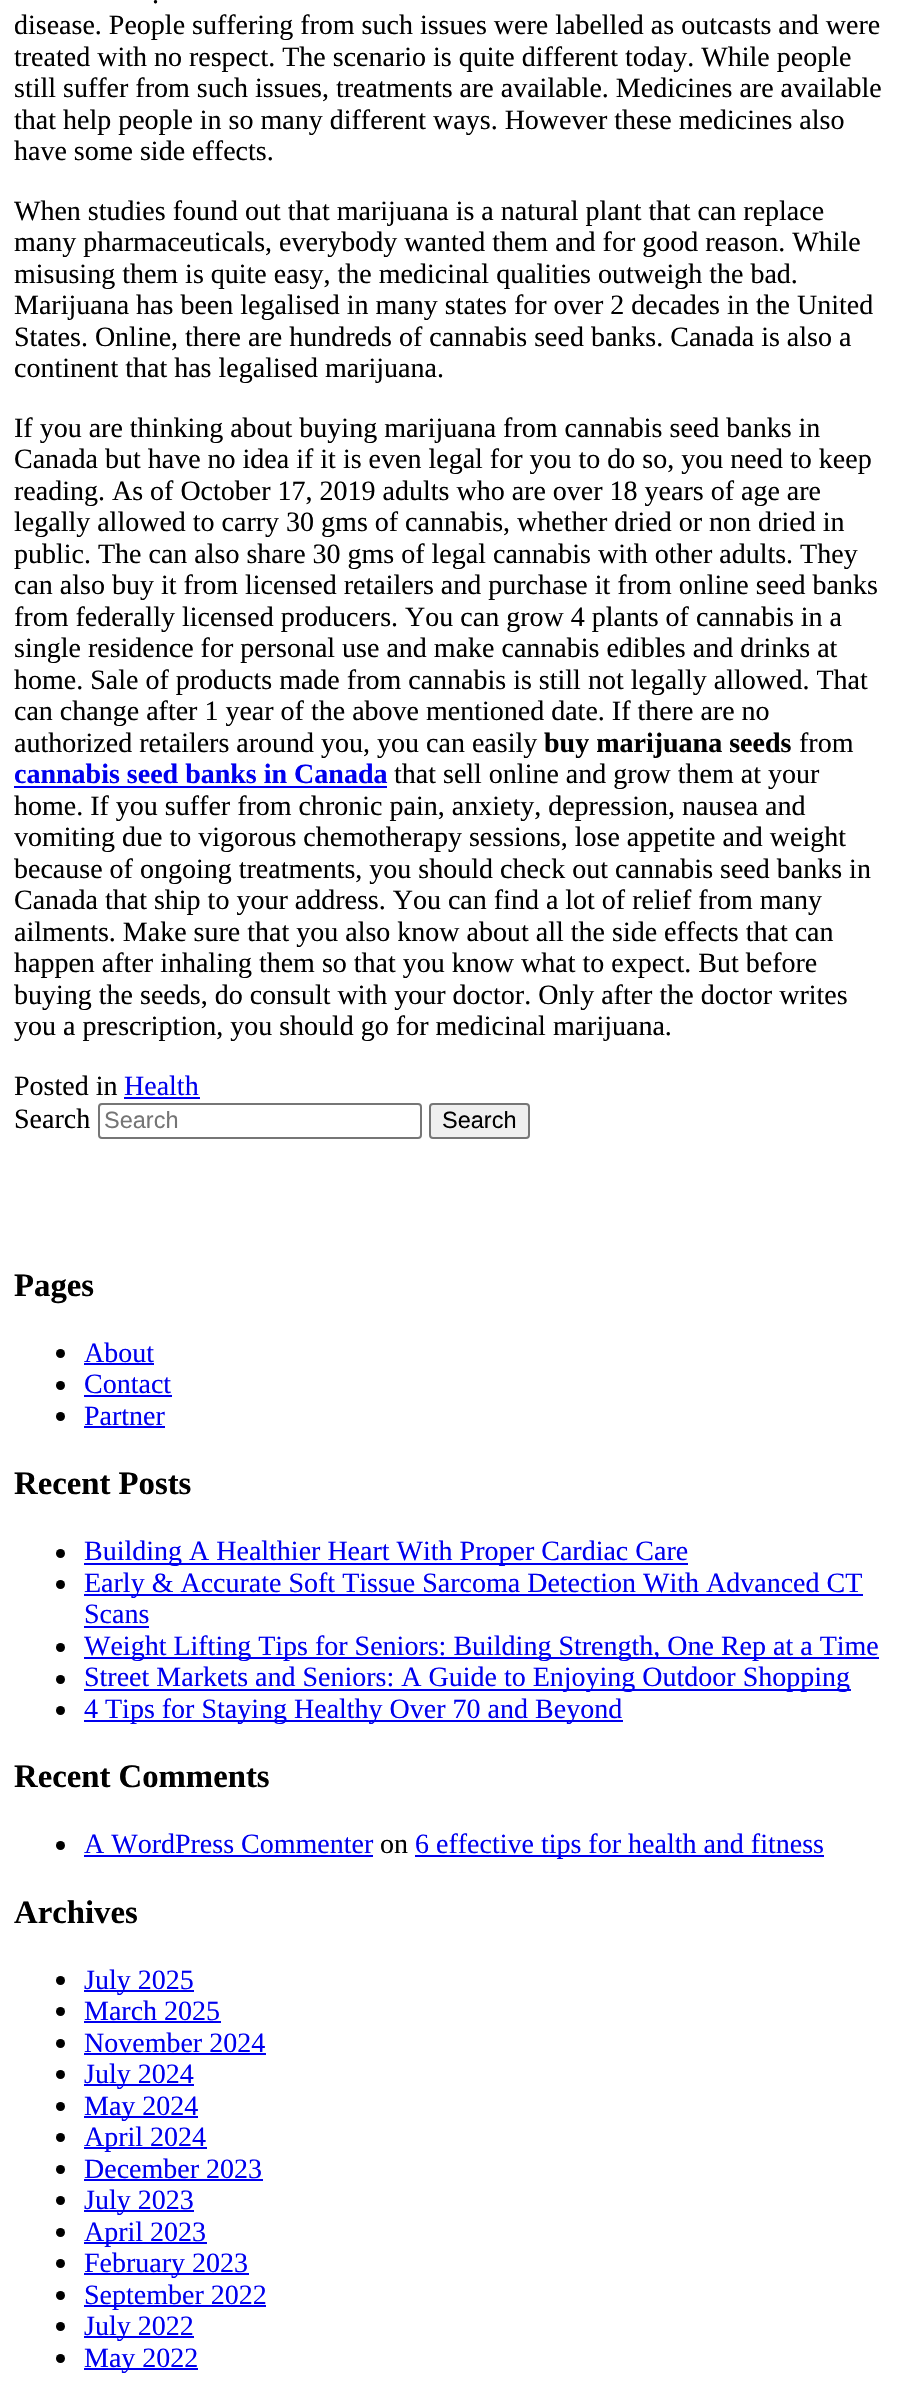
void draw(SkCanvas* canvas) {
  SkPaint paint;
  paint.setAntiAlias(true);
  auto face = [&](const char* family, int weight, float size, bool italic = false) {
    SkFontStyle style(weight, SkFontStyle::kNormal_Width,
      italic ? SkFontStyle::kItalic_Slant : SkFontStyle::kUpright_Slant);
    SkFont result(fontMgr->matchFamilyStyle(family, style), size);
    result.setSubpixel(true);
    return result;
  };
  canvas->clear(0xffffffff);
  paint.setColor(0xff0000ee);
  canvas->drawRect(SkRect::MakeXYWH(14, 786, 373, 2), paint);
  canvas->drawRect(SkRect::MakeXYWH(124, 1097, 76, 2), paint);
  paint.setStroke(true);
  paint.setStrokeWidth(2);
  paint.setColor(0xff767676);
  canvas->drawRoundRect(SkRect::MakeXYWH(99, 1104, 322, 34), 3, 3, paint);
  paint.setStroke(false);
  paint.setColor(0xffefefef);
  canvas->drawRoundRect(SkRect::MakeXYWH(430, 1104, 99, 34), 3, 3, paint);
  paint.setStroke(true);
  paint.setColor(0xff767676);
  canvas->drawRoundRect(SkRect::MakeXYWH(430, 1104, 99, 34), 3, 3, paint);
  paint.setStroke(false);
  paint.setColor(0xff000000);
  canvas->drawCircle(60.5f, 1353.5f, 4.5f, paint);
  paint.setColor(0xff0000ee);
  canvas->drawRect(SkRect::MakeXYWH(84, 1363, 70, 2), paint);
  paint.setColor(0xff000000);
  canvas->drawCircle(60.5f, 1385.5f, 4.5f, paint);
  paint.setColor(0xff0000ee);
  canvas->drawRect(SkRect::MakeXYWH(84, 1395, 88, 2), paint);
  paint.setColor(0xff000000);
  canvas->drawCircle(60.5f, 1416.5f, 4.5f, paint);
  paint.setColor(0xff0000ee);
  canvas->drawRect(SkRect::MakeXYWH(84, 1426, 81, 2), paint);
  paint.setColor(0xff000000);
  canvas->drawCircle(60.5f, 1553.5f, 4.5f, paint);
  paint.setColor(0xff0000ee);
  canvas->drawRect(SkRect::MakeXYWH(84, 1563, 604, 2), paint);
  paint.setColor(0xff000000);
  canvas->drawCircle(60.5f, 1584.5f, 4.5f, paint);
  paint.setColor(0xff0000ee);
  canvas->drawRect(SkRect::MakeXYWH(84, 1594, 779, 2), paint);
  canvas->drawRect(SkRect::MakeXYWH(84, 1626, 65, 2), paint);
  paint.setColor(0xff000000);
  canvas->drawCircle(60.5f, 1647.5f, 4.5f, paint);
  paint.setColor(0xff0000ee);
  canvas->drawRect(SkRect::MakeXYWH(84, 1657, 795, 2), paint);
  paint.setColor(0xff000000);
  canvas->drawCircle(60.5f, 1679.5f, 4.5f, paint);
  paint.setColor(0xff0000ee);
  canvas->drawRect(SkRect::MakeXYWH(84, 1689, 767, 2), paint);
  paint.setColor(0xff000000);
  canvas->drawCircle(60.5f, 1710.5f, 4.5f, paint);
  paint.setColor(0xff0000ee);
  canvas->drawRect(SkRect::MakeXYWH(84, 1720, 539, 2), paint);
  paint.setColor(0xff000000);
  canvas->drawCircle(60.5f, 1845.5f, 4.5f, paint);
  paint.setColor(0xff0000ee);
  canvas->drawRect(SkRect::MakeXYWH(84, 1855, 289, 2), paint);
  canvas->drawRect(SkRect::MakeXYWH(415, 1855, 409, 2), paint);
  paint.setColor(0xff000000);
  canvas->drawCircle(60.5f, 1980.5f, 4.5f, paint);
  paint.setColor(0xff0000ee);
  canvas->drawRect(SkRect::MakeXYWH(84, 1990, 110, 2), paint);
  paint.setColor(0xff000000);
  canvas->drawCircle(60.5f, 2011.5f, 4.5f, paint);
  paint.setColor(0xff0000ee);
  canvas->drawRect(SkRect::MakeXYWH(84, 2021, 137, 2), paint);
  paint.setColor(0xff000000);
  canvas->drawCircle(60.5f, 2043.5f, 4.5f, paint);
  paint.setColor(0xff0000ee);
  canvas->drawRect(SkRect::MakeXYWH(84, 2053, 182, 2), paint);
  paint.setColor(0xff000000);
  canvas->drawCircle(60.5f, 2074.5f, 4.5f, paint);
  paint.setColor(0xff0000ee);
  canvas->drawRect(SkRect::MakeXYWH(84, 2084, 110, 2), paint);
  paint.setColor(0xff000000);
  canvas->drawCircle(60.5f, 2106.5f, 4.5f, paint);
  paint.setColor(0xff0000ee);
  canvas->drawRect(SkRect::MakeXYWH(84, 2116, 114, 2), paint);
  paint.setColor(0xff000000);
  canvas->drawCircle(60.5f, 2137.5f, 4.5f, paint);
  paint.setColor(0xff0000ee);
  canvas->drawRect(SkRect::MakeXYWH(84, 2147, 123, 2), paint);
  paint.setColor(0xff000000);
  canvas->drawCircle(60.5f, 2169.5f, 4.5f, paint);
  paint.setColor(0xff0000ee);
  canvas->drawRect(SkRect::MakeXYWH(84, 2179, 179, 2), paint);
  paint.setColor(0xff000000);
  canvas->drawCircle(60.5f, 2200.5f, 4.5f, paint);
  paint.setColor(0xff0000ee);
  canvas->drawRect(SkRect::MakeXYWH(84, 2210, 110, 2), paint);
  paint.setColor(0xff000000);
  canvas->drawCircle(60.5f, 2232.5f, 4.5f, paint);
  paint.setColor(0xff0000ee);
  canvas->drawRect(SkRect::MakeXYWH(84, 2242, 123, 2), paint);
  paint.setColor(0xff000000);
  canvas->drawCircle(60.5f, 2263.5f, 4.5f, paint);
  paint.setColor(0xff0000ee);
  canvas->drawRect(SkRect::MakeXYWH(84, 2273, 165, 2), paint);
  paint.setColor(0xff000000);
  canvas->drawCircle(60.5f, 2295.5f, 4.5f, paint);
  paint.setColor(0xff0000ee);
  canvas->drawRect(SkRect::MakeXYWH(84, 2305, 182, 2), paint);
  paint.setColor(0xff000000);
  canvas->drawCircle(60.5f, 2326.5f, 4.5f, paint);
  paint.setColor(0xff0000ee);
  canvas->drawRect(SkRect::MakeXYWH(84, 2336, 110, 2), paint);
  paint.setColor(0xff000000);
  canvas->drawCircle(60.5f, 2358.5f, 4.5f, paint);
  paint.setColor(0xff0000ee);
  canvas->drawRect(SkRect::MakeXYWH(84, 2368, 114, 2), paint);
  auto f0 = face("Liberation Serif", 400, 28);
  paint.setColor(0xff000000);
  {
    const struct { const char* s; float x, y; } items[] = {
      {".", 152, 3},
      {"disease. People suffering from such issues were labelled as outcasts and were", 14, 34},
      {"treated with no respect. The scenario is quite different today. While people", 14, 66},
      {"still suffer from such issues, treatments are available. Medicines are available", 14, 97},
      {"that help people in so many different ways. However these medicines also", 14, 129},
      {"have some side effects.", 14, 160},
      {"When studies found out that marijuana is a natural plant that can replace", 14, 220},
      {"many pharmaceuticals, everybody wanted them and for good reason. While", 14, 251},
      {"misusing them is quite easy, the medicinal qualities outweigh the bad.", 14, 283},
      {"Marijuana has been legalised in many states for over 2 decades in the United", 14, 314},
      {"States. Online, there are hundreds of cannabis seed banks. Canada is also a", 14, 346},
      {"continent that has legalised marijuana.", 14, 377},
      {"If you are thinking about buying marijuana from cannabis seed banks in", 14, 437},
      {"Canada but have no idea if it is even legal for you to do so, you need to keep", 14, 468},
      {"reading. As of October 17, 2019 adults who are over 18 years of age are", 14, 500},
      {"legally allowed to carry 30 gms of cannabis, whether dried or non dried in", 14, 531},
      {"public. The can also share 30 gms of legal cannabis with other adults. They", 14, 563},
      {"can also buy it from licensed retailers and purchase it from online seed banks", 14, 594},
      {"from federally licensed producers. You can grow 4 plants of cannabis in a", 14, 626},
      {"single residence for personal use and make cannabis edibles and drinks at", 14, 657},
      {"home. Sale of products made from cannabis is still not legally allowed. That", 14, 689},
      {"can change after 1 year of the above mentioned date. If there are no", 14, 720},
      {"authorized retailers around you, you can easily", 14, 752},
    };
    for (auto [s, x, y] : items) {
      canvas->drawString(s, x, y, f0, paint);
    }
  }
  auto f1 = face("Liberation Serif", 700, 28);
  canvas->drawString("buy marijuana seeds", 544, 752, f1, paint);
  canvas->drawString("from", 799, 752, f0, paint);
  paint.setColor(0xff0000ee);
  canvas->drawString("cannabis seed banks in Canada", 14, 783, f1, paint);
  paint.setColor(0xff000000);
  {
    const struct { const char* s; float x, y; } items[] = {
      {"that sell online and grow them at your", 394, 783},
      {"home. If you suffer from chronic pain, anxiety, depression, nausea and", 14, 815},
      {"vomiting due to vigorous chemotherapy sessions, lose appetite and weight", 14, 846},
      {"because of ongoing treatments, you should check out cannabis seed banks in", 14, 878},
      {"Canada that ship to your address. You can find a lot of relief from many", 14, 909},
      {"ailments. Make sure that you also know about all the side effects that can", 14, 941},
      {"happen after inhaling them so that you know what to expect. But before", 14, 972},
      {"buying the seeds, do consult with your doctor. Only after the doctor writes", 14, 1004},
      {"you a prescription, you should go for medicinal marijuana.", 14, 1035},
      {"Posted in", 14, 1095},
    };
    for (auto [s, x, y] : items) {
      canvas->drawString(s, x, y, f0, paint);
    }
  }
  paint.setColor(0xff0000ee);
  canvas->drawString("Health", 124, 1095, f0, paint);
  paint.setColor(0xff000000);
  canvas->drawString("Search", 14, 1128, f0, paint);
  auto f2 = face("Liberation Sans", 400, 23.5f);
  paint.setColor(0xff757575);
  canvas->drawString("Search", 104, 1128, f2, paint);
  paint.setColor(0xff000000);
  canvas->drawString("Search", 442, 1128, f2, paint);
  auto f3 = face("Liberation Serif", 700, 32.75f);
  canvas->drawString("Pages", 14, 1296, f3, paint);
  paint.setColor(0xff0000ee);
  {
    const struct { const char* s; float x, y; } items[] = {
      {"About", 84, 1362},
      {"Contact", 84, 1393},
      {"Partner", 84, 1425},
    };
    for (auto [s, x, y] : items) {
      canvas->drawString(s, x, y, f0, paint);
    }
  }
  paint.setColor(0xff000000);
  canvas->drawString("Recent Posts", 14, 1494, f3, paint);
  paint.setColor(0xff0000ee);
  {
    const struct { const char* s; float x, y; } items[] = {
      {"Building A Healthier Heart With Proper Cardiac Care", 84, 1560},
      {"Early & Accurate Soft Tissue Sarcoma Detection With Advanced CT", 84, 1592},
      {"Scans", 84, 1623},
      {"Weight Lifting Tips for Seniors: Building Strength, One Rep at a Time", 84, 1655},
      {"Street Markets and Seniors: A Guide to Enjoying Outdoor Shopping", 84, 1686},
      {"4 Tips for Staying Healthy Over 70 and Beyond", 84, 1718},
    };
    for (auto [s, x, y] : items) {
      canvas->drawString(s, x, y, f0, paint);
    }
  }
  paint.setColor(0xff000000);
  canvas->drawString("Recent Comments", 14, 1787, f3, paint);
  paint.setColor(0xff0000ee);
  canvas->drawString("A WordPress Commenter", 84, 1853, f0, paint);
  paint.setColor(0xff000000);
  canvas->drawString("on", 380, 1853, f0, paint);
  paint.setColor(0xff0000ee);
  canvas->drawString("6 effective tips for health and fitness", 415, 1853, f0, paint);
  paint.setColor(0xff000000);
  canvas->drawString("Archives", 14, 1923, f3, paint);
  paint.setColor(0xff0000ee);
  {
    const struct { const char* s; float x, y; } items[] = {
      {"July 2025", 84, 1989},
      {"March 2025", 84, 2020},
      {"November 2024", 84, 2052},
      {"July 2024", 84, 2083},
      {"May 2024", 84, 2115},
      {"April 2024", 84, 2146},
      {"December 2023", 84, 2178},
      {"July 2023", 84, 2209},
      {"April 2023", 84, 2241},
      {"February 2023", 84, 2272},
      {"September 2022", 84, 2304},
      {"July 2022", 84, 2335},
      {"May 2022", 84, 2367},
    };
    for (auto [s, x, y] : items) {
      canvas->drawString(s, x, y, f0, paint);
    }
  }
}
